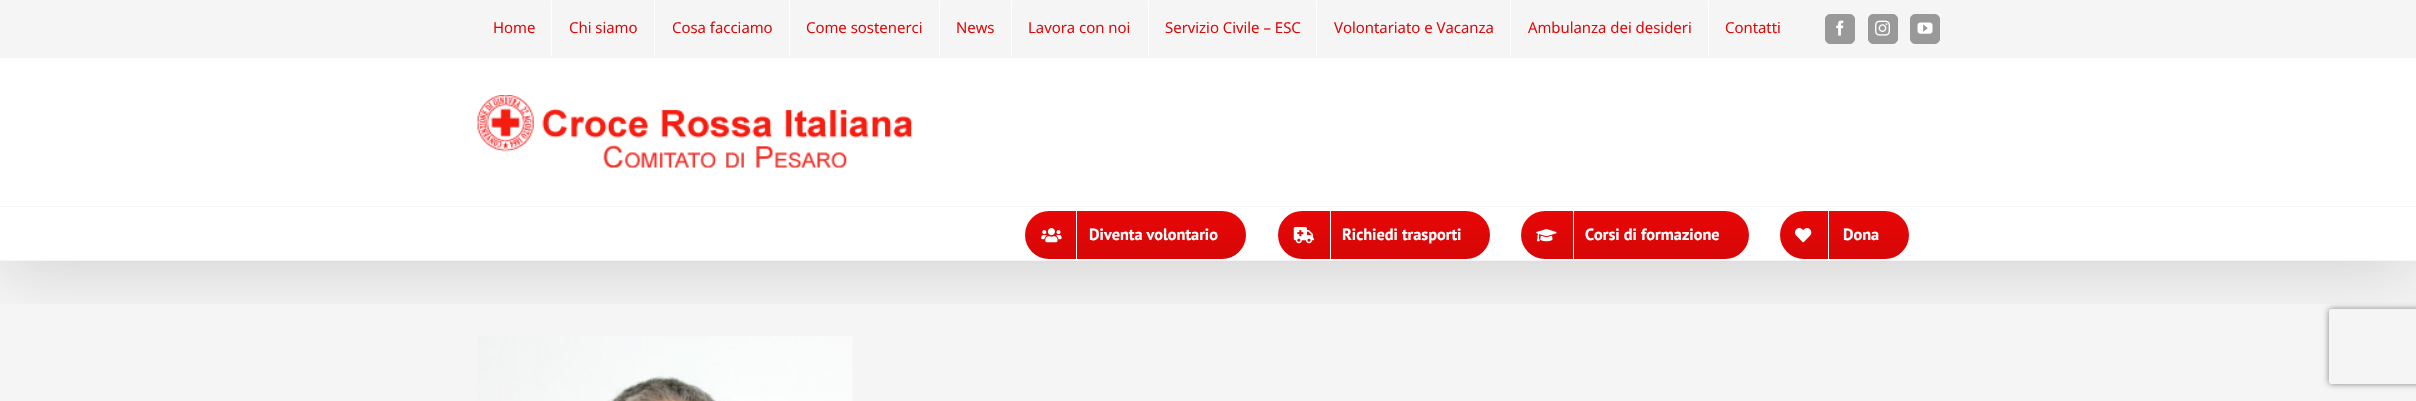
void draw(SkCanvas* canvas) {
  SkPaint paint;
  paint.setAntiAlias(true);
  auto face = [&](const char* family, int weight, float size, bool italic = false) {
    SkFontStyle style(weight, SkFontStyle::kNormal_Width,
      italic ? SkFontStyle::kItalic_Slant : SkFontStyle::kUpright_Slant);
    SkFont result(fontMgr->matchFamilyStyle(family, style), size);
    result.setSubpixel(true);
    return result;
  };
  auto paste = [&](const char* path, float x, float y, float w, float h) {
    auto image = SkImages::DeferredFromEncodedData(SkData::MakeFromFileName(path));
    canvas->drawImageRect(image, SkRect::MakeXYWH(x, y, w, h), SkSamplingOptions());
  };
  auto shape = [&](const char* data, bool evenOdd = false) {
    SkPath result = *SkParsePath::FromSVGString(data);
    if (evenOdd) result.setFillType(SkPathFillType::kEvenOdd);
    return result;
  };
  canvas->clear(0xfff5f5f5);
  paste("img/9.png", 478, 336, 375, 65);
  canvas->save();
  canvas->clipRect(SkRect::MakeXYWH(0, 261, 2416, 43));
  paint.setColor(0x24000000);
  paint.setMaskFilter(SkMaskFilter::MakeBlur(kNormal_SkBlurStyle, 31));
  canvas->drawRect(SkRect::MakeXYWH(3, 15, 2411, 256), paint);
  paint.setMaskFilter(nullptr);
  canvas->restore();
  {
    const struct { float x, y, w, h; SkColor color; } items[] = {
      {551, 1, 1, 55, 0xffffffff},
      {654, 1, 1, 55, 0xffffffff},
      {789, 1, 1, 55, 0xffffffff},
      {939, 1, 1, 55, 0xffffffff},
      {1011, 1, 1, 55, 0xffffffff},
      {1148, 1, 1, 55, 0xffffffff},
      {1316, 1, 1, 55, 0xffffffff},
      {1510, 1, 1, 55, 0xffffffff},
      {1708, 1, 1, 55, 0xffffffff},
    };
    for (auto [x, y, w, h, color] : items) {
      paint.setColor(color);
      canvas->drawRect(SkRect::MakeXYWH(x, y, w, h), paint);
    }
  }
  paint.setColor(0xff999999);
  canvas->drawRoundRect(SkRect::MakeXYWH(1825.5f, 14.5f, 29, 29), 4.5f, 4.5f, paint);
  paint.setStroke(true);
  paint.setStrokeWidth(1);
  canvas->drawRoundRect(SkRect::MakeXYWH(1825.5f, 14.5f, 29, 29), 4.5f, 4.5f, paint);
  paste("img/1.png", 1836, 20, 8, 16);
  paint.setStroke(false);
  canvas->drawRoundRect(SkRect::MakeXYWH(1868.5f, 14.5f, 29, 29), 4.5f, 4.5f, paint);
  paint.setStroke(true);
  canvas->drawRoundRect(SkRect::MakeXYWH(1868.5f, 14.5f, 29, 29), 4.5f, 4.5f, paint);
  paste("img/2.png", 1875, 20, 15, 16);
  paint.setStroke(false);
  canvas->drawRoundRect(SkRect::MakeXYWH(1910.5f, 14.5f, 29, 29), 4.5f, 4.5f, paint);
  paint.setStroke(true);
  canvas->drawRoundRect(SkRect::MakeXYWH(1910.5f, 14.5f, 29, 29), 4.5f, 4.5f, paint);
  paste("img/3.png", 1917, 22, 16, 12);
  paint.setStroke(false);
  paint.setColor(0xffffffff);
  canvas->drawRect(SkRect::MakeXYWH(0, 58, 2416, 202), paint);
  paint.setColor(0xfff5f5f5);
  canvas->drawRect(SkRect::MakeXYWH(0, 206, 2416, 1), paint);
  paste("img/4.png", 477, 95, 435, 73);
  {
    const SkColor colors[] = {0xffe80707, 0xffd60707};
    const float stops[] = {0, 1};
    const SkPoint ends[] = {{1136, 211}, {1136, 259}};
    paint.setShader(SkGradientShader::MakeLinear(ends, colors, stops, 2, SkTileMode::kClamp));
    paint.setAlpha(255);
  }
  canvas->drawRoundRect(SkRect::MakeXYWH(1025, 211, 221, 48), 24, 24, paint);
  paint.setShader(nullptr);
  paint.setColor(0xffffffff);
  canvas->drawRect(SkRect::MakeXYWH(1076, 211, 1, 48), paint);
  paste("img/5.png", 1041, 228, 21, 15);
  {
    const SkColor colors[] = {0xffe80707, 0xffd60707};
    const float stops[] = {0, 1};
    const SkPoint ends[] = {{1384, 211}, {1384, 259}};
    paint.setShader(SkGradientShader::MakeLinear(ends, colors, stops, 2, SkTileMode::kClamp));
    paint.setAlpha(255);
  }
  canvas->drawRoundRect(SkRect::MakeXYWH(1278, 211, 212, 48), 24, 24, paint);
  paint.setShader(nullptr);
  paint.setColor(0xffffffff);
  canvas->drawRect(SkRect::MakeXYWH(1330, 211, 1, 48), paint);
  paste("img/6.png", 1293, 227, 22, 17);
  {
    const SkColor colors[] = {0xffe80707, 0xffd60707};
    const float stops[] = {0, 1};
    const SkPoint ends[] = {{1635, 211}, {1635, 259}};
    paint.setShader(SkGradientShader::MakeLinear(ends, colors, stops, 2, SkTileMode::kClamp));
    paint.setAlpha(255);
  }
  canvas->drawRoundRect(SkRect::MakeXYWH(1521, 211, 228, 48), 24, 24, paint);
  paint.setShader(nullptr);
  paint.setColor(0xffffffff);
  canvas->drawRect(SkRect::MakeXYWH(1573, 211, 1, 48), paint);
  paste("img/7.png", 1536, 229, 21, 13);
  {
    const SkColor colors[] = {0xffe80707, 0xffd60707};
    const float stops[] = {0, 1};
    const SkPoint ends[] = {{1844, 211}, {1844, 259}};
    paint.setShader(SkGradientShader::MakeLinear(ends, colors, stops, 2, SkTileMode::kClamp));
    paint.setAlpha(255);
  }
  canvas->drawRoundRect(SkRect::MakeXYWH(1780, 211, 129, 48), 24, 24, paint);
  paint.setShader(nullptr);
  paint.setColor(0xffffffff);
  canvas->drawRect(SkRect::MakeXYWH(1828, 211, 1, 48), paint);
  paste("img/8.png", 1795, 228, 17, 15);
  canvas->save();
  canvas->clipPath(shape("M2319 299H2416V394H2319ZM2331.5 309H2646.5C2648 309 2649 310 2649 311.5V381.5C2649 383 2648 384 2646.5 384H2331.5C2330 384 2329 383 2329 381.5V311.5C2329 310 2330 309 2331.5 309Z", true), true);
  paint.setColor(0xff808080);
  paint.setMaskFilter(SkMaskFilter::MakeBlur(kNormal_SkBlurStyle, 3));
  canvas->drawRoundRect(SkRect::MakeXYWH(2329, 309, 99, 75), 2.5f, 2.5f, paint);
  paint.setMaskFilter(nullptr);
  canvas->restore();
  auto f0 = face("Open Sans", 400, 15);
  paint.setColor(0xffe10707);
  {
    const struct { const char* s; float x, y; } items[] = {
      {"Home", 493, 33},
      {"Chi siamo", 569, 33},
      {"Cosa facciamo", 672, 33},
      {"Come sostenerci", 806, 33},
      {"News", 956, 33},
      {"Lavora con noi", 1028, 33},
      {"Servizio Civile – ESC", 1165, 33},
      {"Volontariato e Vacanza", 1334, 33},
      {"Ambulanza dei desideri", 1528, 33},
      {"Contatti", 1725, 33},
    };
    for (auto [s, x, y] : items) {
      canvas->drawString(s, x, y, f0, paint);
    }
  }
  auto f1 = face("PT Sans", 700, 16.25f);
  paint.setColor(0xffffffff);
  {
    const struct { const char* s; float x, y; } items[] = {
      {"Diventa volontario", 1089, 240},
      {"Richiedi trasporti", 1342, 240},
      {"Corsi di formazione", 1585, 240},
      {"Dona", 1843, 240},
    };
    for (auto [s, x, y] : items) {
      canvas->drawString(s, x, y, f1, paint);
    }
  }
}
